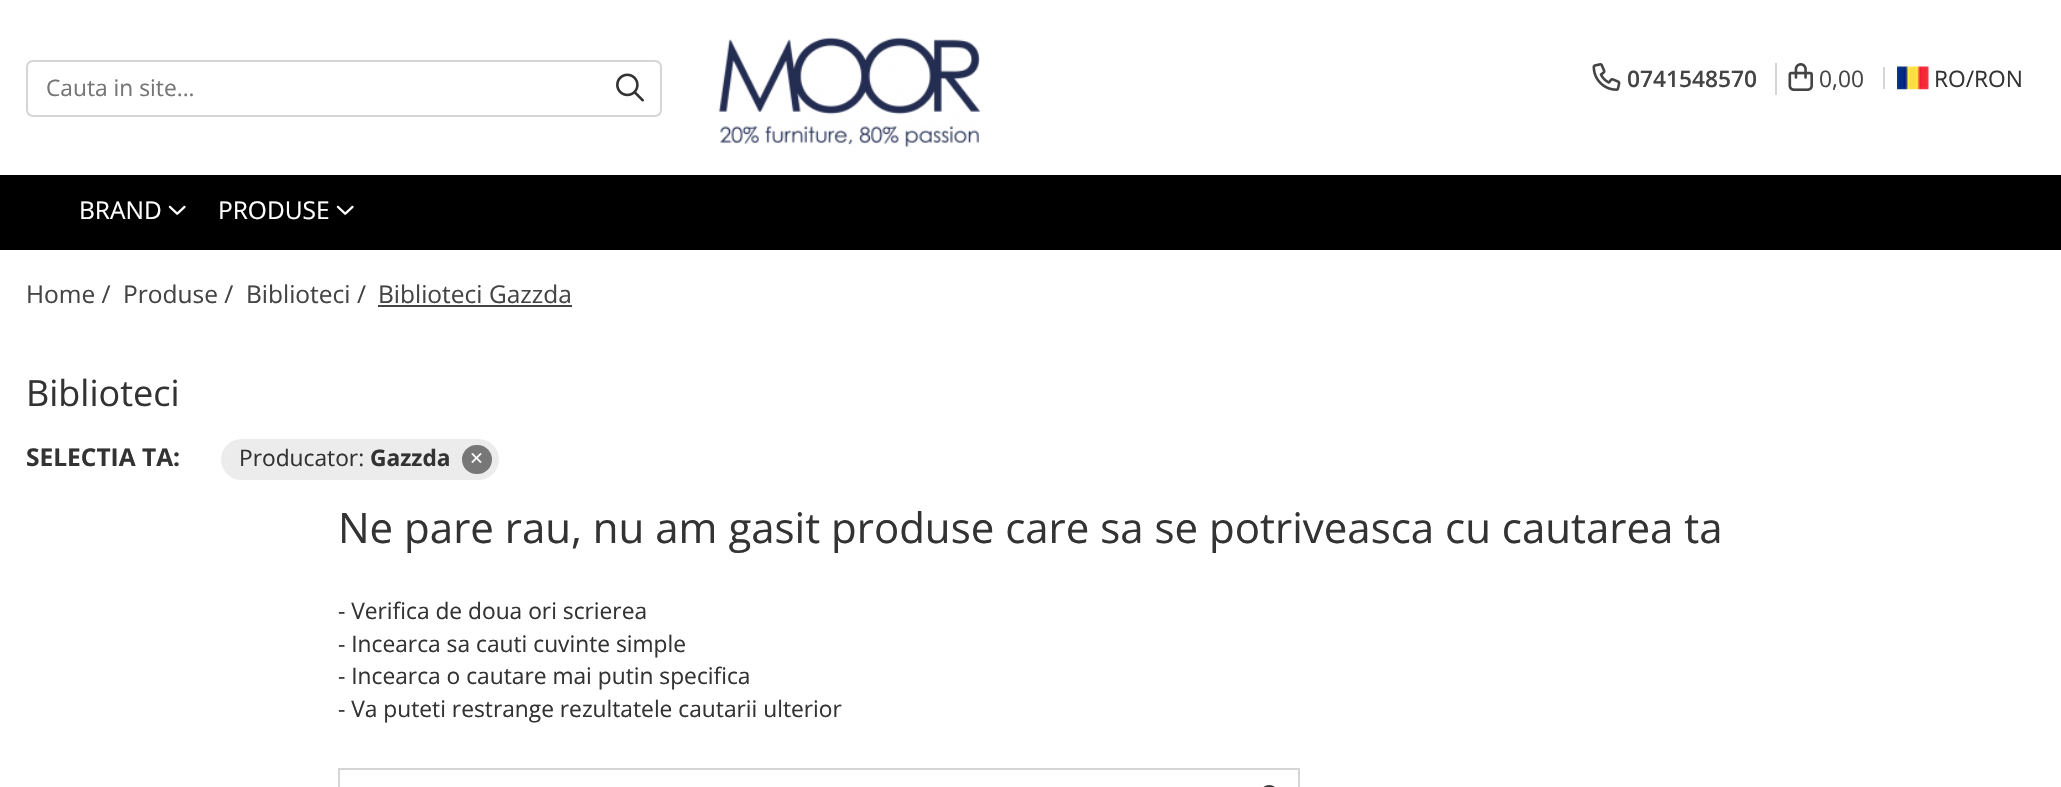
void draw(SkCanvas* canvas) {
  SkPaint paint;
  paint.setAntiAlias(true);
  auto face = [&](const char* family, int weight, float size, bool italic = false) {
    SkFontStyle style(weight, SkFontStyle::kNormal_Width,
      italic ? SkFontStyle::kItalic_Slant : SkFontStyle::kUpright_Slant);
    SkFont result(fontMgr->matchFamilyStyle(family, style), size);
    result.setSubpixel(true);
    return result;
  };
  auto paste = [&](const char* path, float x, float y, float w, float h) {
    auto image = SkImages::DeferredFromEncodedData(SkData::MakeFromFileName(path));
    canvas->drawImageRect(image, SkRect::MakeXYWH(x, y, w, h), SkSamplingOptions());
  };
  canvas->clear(0xffffffff);
  paint.setStroke(true);
  paint.setStrokeWidth(2);
  paint.setColor(0xffd5d5d5);
  canvas->drawRoundRect(SkRect::MakeXYWH(27, 61, 634, 55), 6, 6, paint);
  paste("img/1.png", 616, 73, 28, 29);
  paste("img/2.png", 718, 37, 262, 111);
  paste("img/3.png", 1592, 63, 29, 28);
  paint.setStroke(false);
  canvas->drawRect(SkRect::MakeXYWH(1775, 63, 2, 32), paint);
  paste("img/4.png", 1788, 63, 25, 28);
  paste("img/5.png", 1897, 66, 32, 24);
  canvas->drawRect(SkRect::MakeXYWH(1883, 67, 2, 22), paint);
  paint.setColor(0xff000000);
  canvas->drawRect(SkRect::MakeXYWH(0, 175, 2061, 75), paint);
  paste("img/6.png", 168, 205, 18, 10);
  paste("img/6.png", 336, 205, 18, 10);
  paint.setColor(0xff444444);
  canvas->drawRect(SkRect::MakeXYWH(378, 305, 194, 2), paint);
  paint.setColor(0xffececec);
  canvas->drawRoundRect(SkRect::MakeXYWH(221, 439, 278, 41), 20.5f, 20.5f, paint);
  paint.setColor(0xff777777);
  canvas->drawRoundRect(SkRect::MakeXYWH(462, 445, 30, 29), 14.5f, 14.5f, paint);
  paint.setStroke(true);
  paint.setColor(0xffd5d5d5);
  canvas->drawRect(SkRect::MakeXYWH(339, 769, 960, 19), paint);
  paste("img/7.png", 1263, 785, 12, 2);
  auto f0 = face("Open Sans", 400, 22.75f);
  paint.setStroke(false);
  paint.setColor(0xff757575);
  canvas->drawString("Cauta in site...", 46, 96, f0, paint);
  auto f1 = face("Open Sans", 600, 22.75f);
  paint.setColor(0xff444444);
  canvas->drawString("0741548570", 1627, 87, f1, paint);
  canvas->drawString("0,00", 1819, 87, f0, paint);
  paint.setColor(0xff333333);
  canvas->drawString("RO/RON", 1934, 87, f0, paint);
  auto f2 = face("Open Sans", 400, 24.5f);
  paint.setColor(0xffffffff);
  canvas->drawString("BRAND", 79, 219, f2, paint);
  canvas->drawString("PRODUSE", 218, 219, f2, paint);
  paint.setColor(0xff444444);
  {
    const struct { const char* s; float x, y; } items[] = {
      {"Home /", 26, 303},
      {"Produse /", 123, 303},
      {"Biblioteci /", 246, 303},
      {"Biblioteci Gazzda", 378, 303},
    };
    for (auto [s, x, y] : items) {
      canvas->drawString(s, x, y, f2, paint);
    }
  }
  auto f3 = face("Open Sans", 400, 36);
  paint.setColor(0xff333333);
  canvas->drawString("Biblioteci", 26, 406, f3, paint);
  auto f4 = face("Open Sans", 700, 24.5f);
  canvas->drawString("SELECTIA TA:", 26, 466, f4, paint);
  canvas->drawString("Producator:", 239, 466, f0, paint);
  auto f5 = face("Open Sans", 700, 22.75f);
  canvas->drawString("Gazzda", 370, 466, f5, paint);
  paint.setColor(0xffffffff);
  canvas->drawString("×", 470, 466, f0, paint);
  auto f6 = face("Open Sans", 400, 42);
  paint.setColor(0xff333333);
  canvas->drawString("Ne pare rau, nu am gasit produse care sa se potriveasca cu cautarea ta", 338, 543, f6, paint);
  {
    const struct { const char* s; float x, y; } items[] = {
      {"- Verifica de doua ori scrierea", 338, 619},
      {"- Incearca sa cauti cuvinte simple", 338, 652},
      {"- Incearca o cautare mai putin specifica", 338, 684},
      {"- Va puteti restrange rezultatele cautarii ulterior", 338, 717},
    };
    for (auto [s, x, y] : items) {
      canvas->drawString(s, x, y, f0, paint);
    }
  }
}
